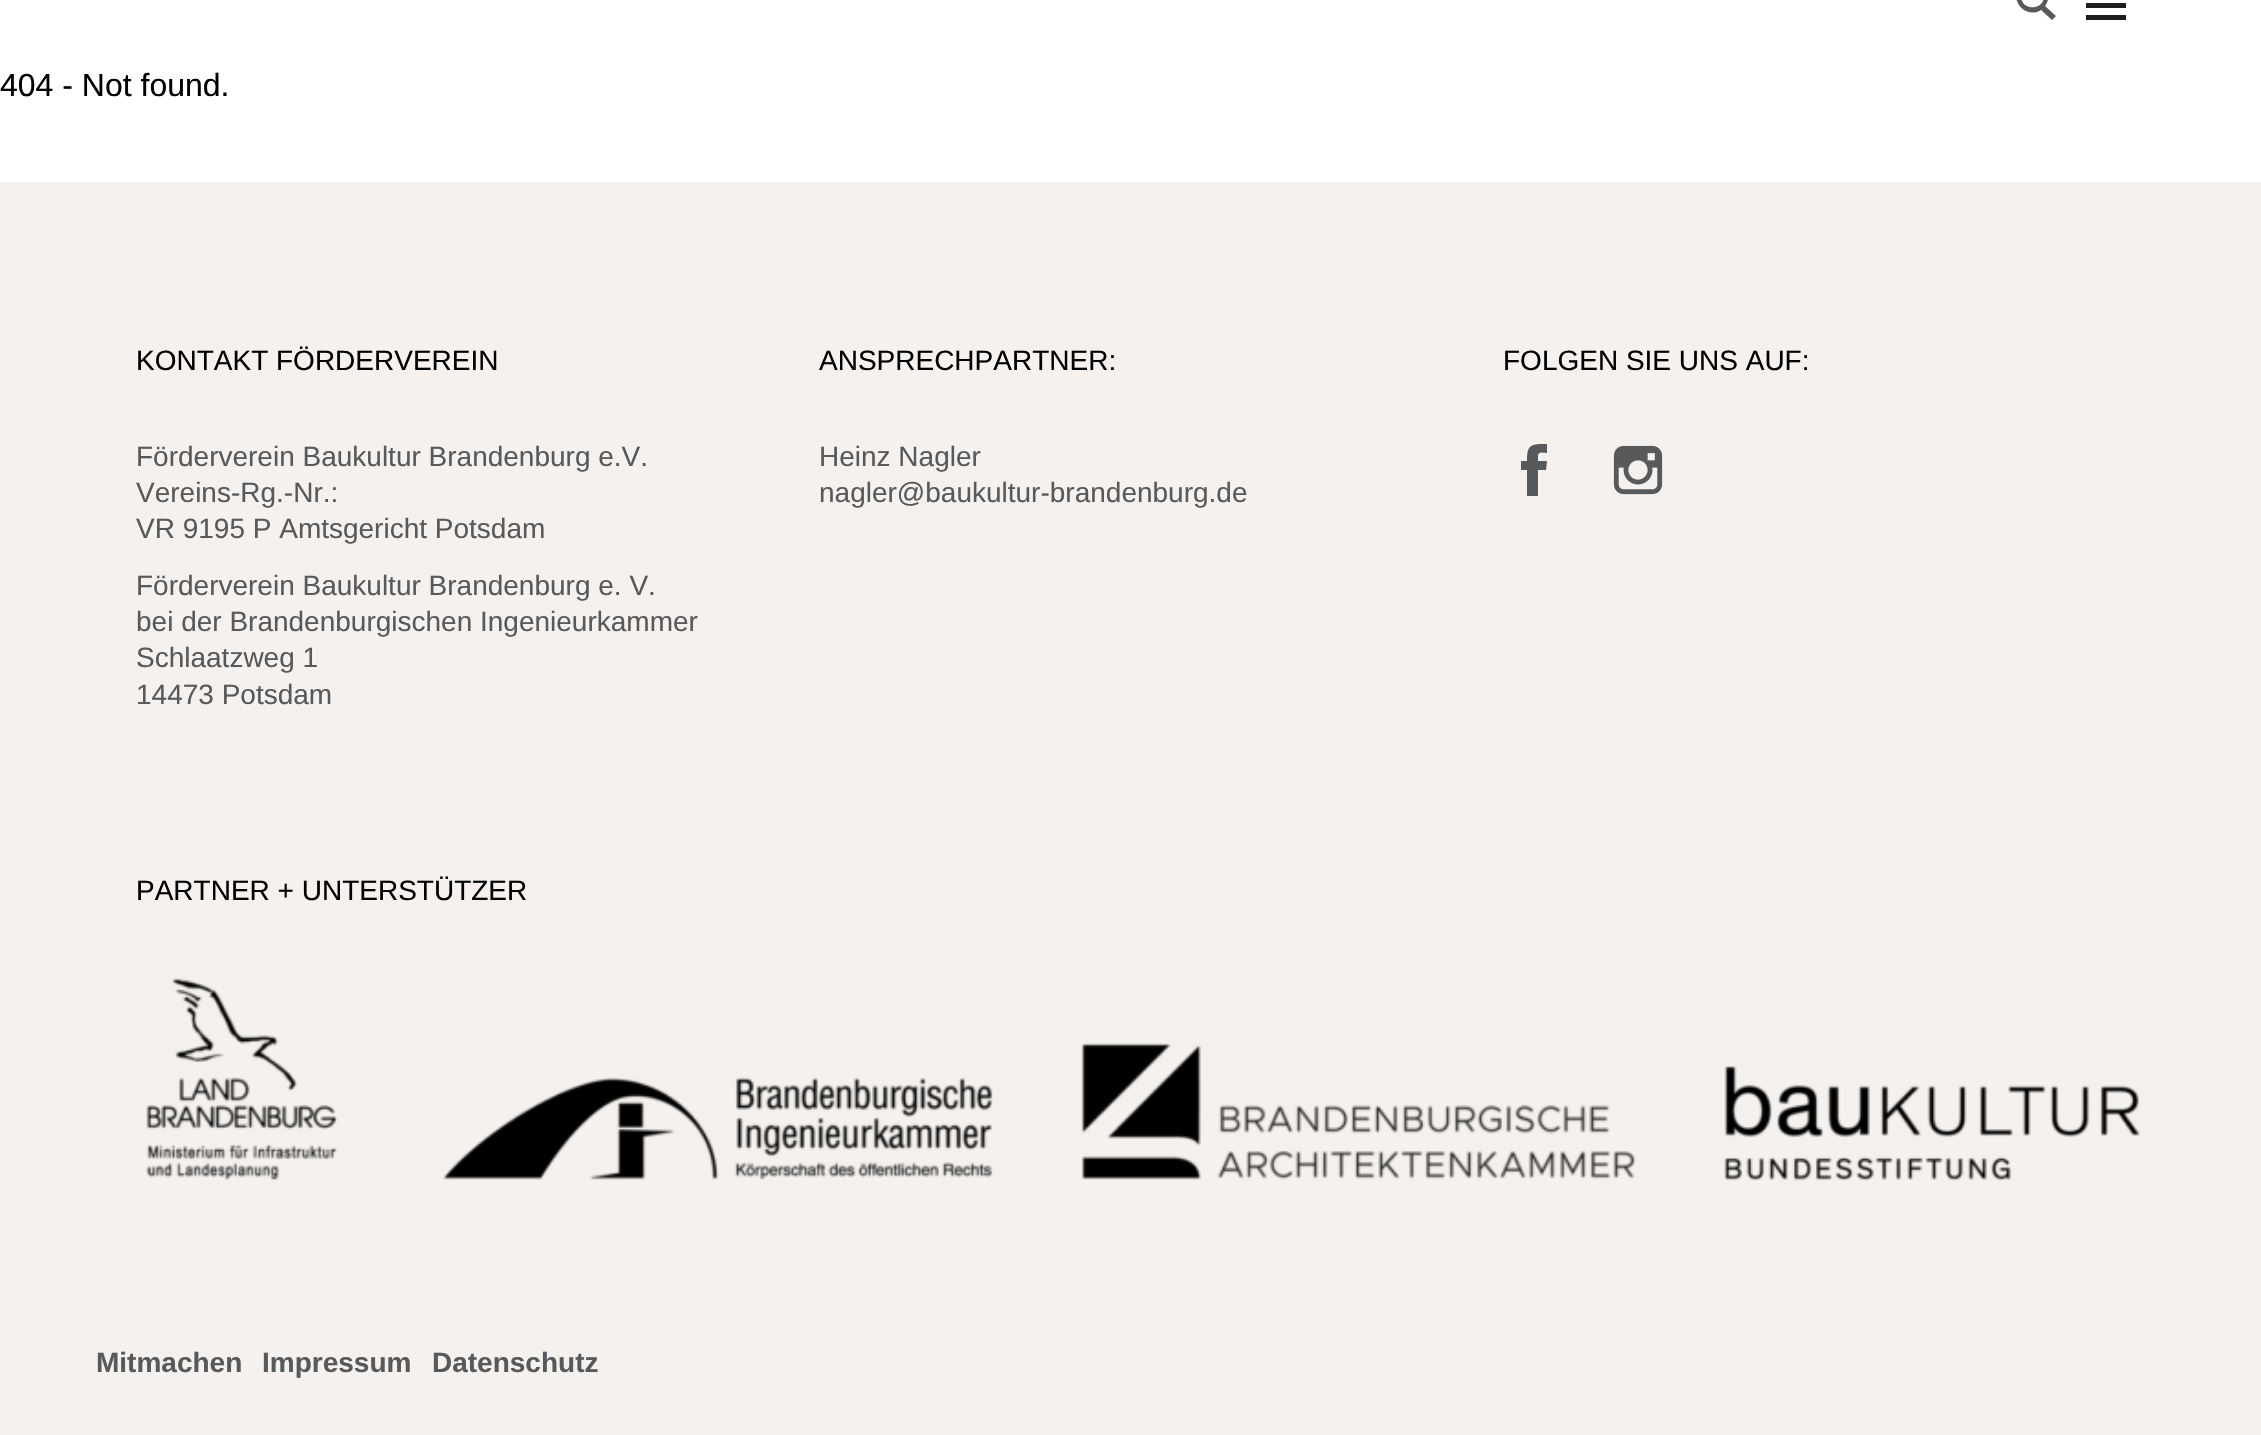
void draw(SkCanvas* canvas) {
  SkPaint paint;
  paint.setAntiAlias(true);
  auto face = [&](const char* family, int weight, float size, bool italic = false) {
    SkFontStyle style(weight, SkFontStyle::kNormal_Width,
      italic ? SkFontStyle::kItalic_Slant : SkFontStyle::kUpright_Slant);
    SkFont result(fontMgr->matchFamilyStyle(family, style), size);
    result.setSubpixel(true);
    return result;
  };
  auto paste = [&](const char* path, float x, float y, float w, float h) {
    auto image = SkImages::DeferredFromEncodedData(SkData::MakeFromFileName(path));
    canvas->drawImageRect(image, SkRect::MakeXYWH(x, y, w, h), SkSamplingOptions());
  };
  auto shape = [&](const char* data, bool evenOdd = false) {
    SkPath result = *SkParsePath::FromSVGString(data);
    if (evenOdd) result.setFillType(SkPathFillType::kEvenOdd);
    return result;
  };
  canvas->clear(0xffffffff);
  paint.setColor(0xff58595b);
  canvas->drawPath(shape("M2045 6C2057-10 2035-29 2021-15C2007-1 2026 20 2041 10L2052 20L2056 16ZM2021-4C2021-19 2044-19 2044-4C2044 11 2021 11 2021-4Z", true), paint);
  {
    const struct { float x, y, w, h; SkColor color; } items[] = {
      {2086, 15, 40, 5, 0xff1d1d1b},
      {2086, 3, 40, 5, 0xff1d1d1b},
      {0, 182, 2261, 1253, 0xfff4f1ee},
    };
    for (auto [x, y, w, h, color] : items) {
      paint.setColor(color);
      canvas->drawRect(SkRect::MakeXYWH(x, y, w, h), paint);
    }
  }
  paint.setColor(0xff58595b);
  canvas->drawPath(shape("M1538 456C1538 451 1543 453 1547 453V444C1531 444 1527 444 1527 461H1521V470H1527V496H1538V470H1546L1547 461H1538Z"), paint);
  paste("img/1.png", 1613, 445, 50, 50);
  paste("img/2.png", 146, 978, 192, 203);
  paste("img/3.png", 443, 1077, 550, 103);
  paste("img/4.png", 1081, 1043, 555, 137);
  paste("img/5.png", 1724, 1065, 417, 116);
  auto f0 = face("Liberation Sans", 400, 32);
  paint.setColor(0xff000000);
  canvas->drawString("404 - Not found.", 0, 96, f0, paint);
  auto f1 = face("Liberation Sans", 400, 28);
  canvas->drawString("KONTAKT FÖRDERVEREIN", 136, 370, f1, paint);
  paint.setColor(0xff58595b);
  {
    const struct { const char* s; float x, y; } items[] = {
      {"Förderverein Baukultur Brandenburg e.V.", 136, 466},
      {"Vereins-Rg.-Nr.:", 136, 502},
      {"VR 9195 P Amtsgericht Potsdam", 136, 538},
      {"Förderverein Baukultur Brandenburg e. V.", 136, 595},
      {"bei der Brandenburgischen Ingenieurkammer", 136, 631},
      {"Schlaatzweg 1", 136, 667},
      {"14473 Potsdam", 136, 704},
    };
    for (auto [s, x, y] : items) {
      canvas->drawString(s, x, y, f1, paint);
    }
  }
  paint.setColor(0xff000000);
  canvas->drawString("ANSPRECHPARTNER:", 819, 370, f1, paint);
  paint.setColor(0xff58595b);
  canvas->drawString("Heinz Nagler", 819, 466, f1, paint);
  canvas->drawString("nagler@baukultur-brandenburg.de", 819, 502, f1, paint);
  paint.setColor(0xff000000);
  canvas->drawString("FOLGEN SIE UNS AUF:", 1503, 370, f1, paint);
  canvas->drawString("PARTNER + UNTERSTÜTZER", 136, 900, f1, paint);
  auto f2 = face("Liberation Sans", 700, 28);
  paint.setColor(0xff58595b);
  {
    const struct { const char* s; float x, y; } items[] = {
      {"Mitmachen", 96, 1372},
      {"Impressum", 262, 1372},
      {"Datenschutz", 432, 1372},
    };
    for (auto [s, x, y] : items) {
      canvas->drawString(s, x, y, f2, paint);
    }
  }
}
